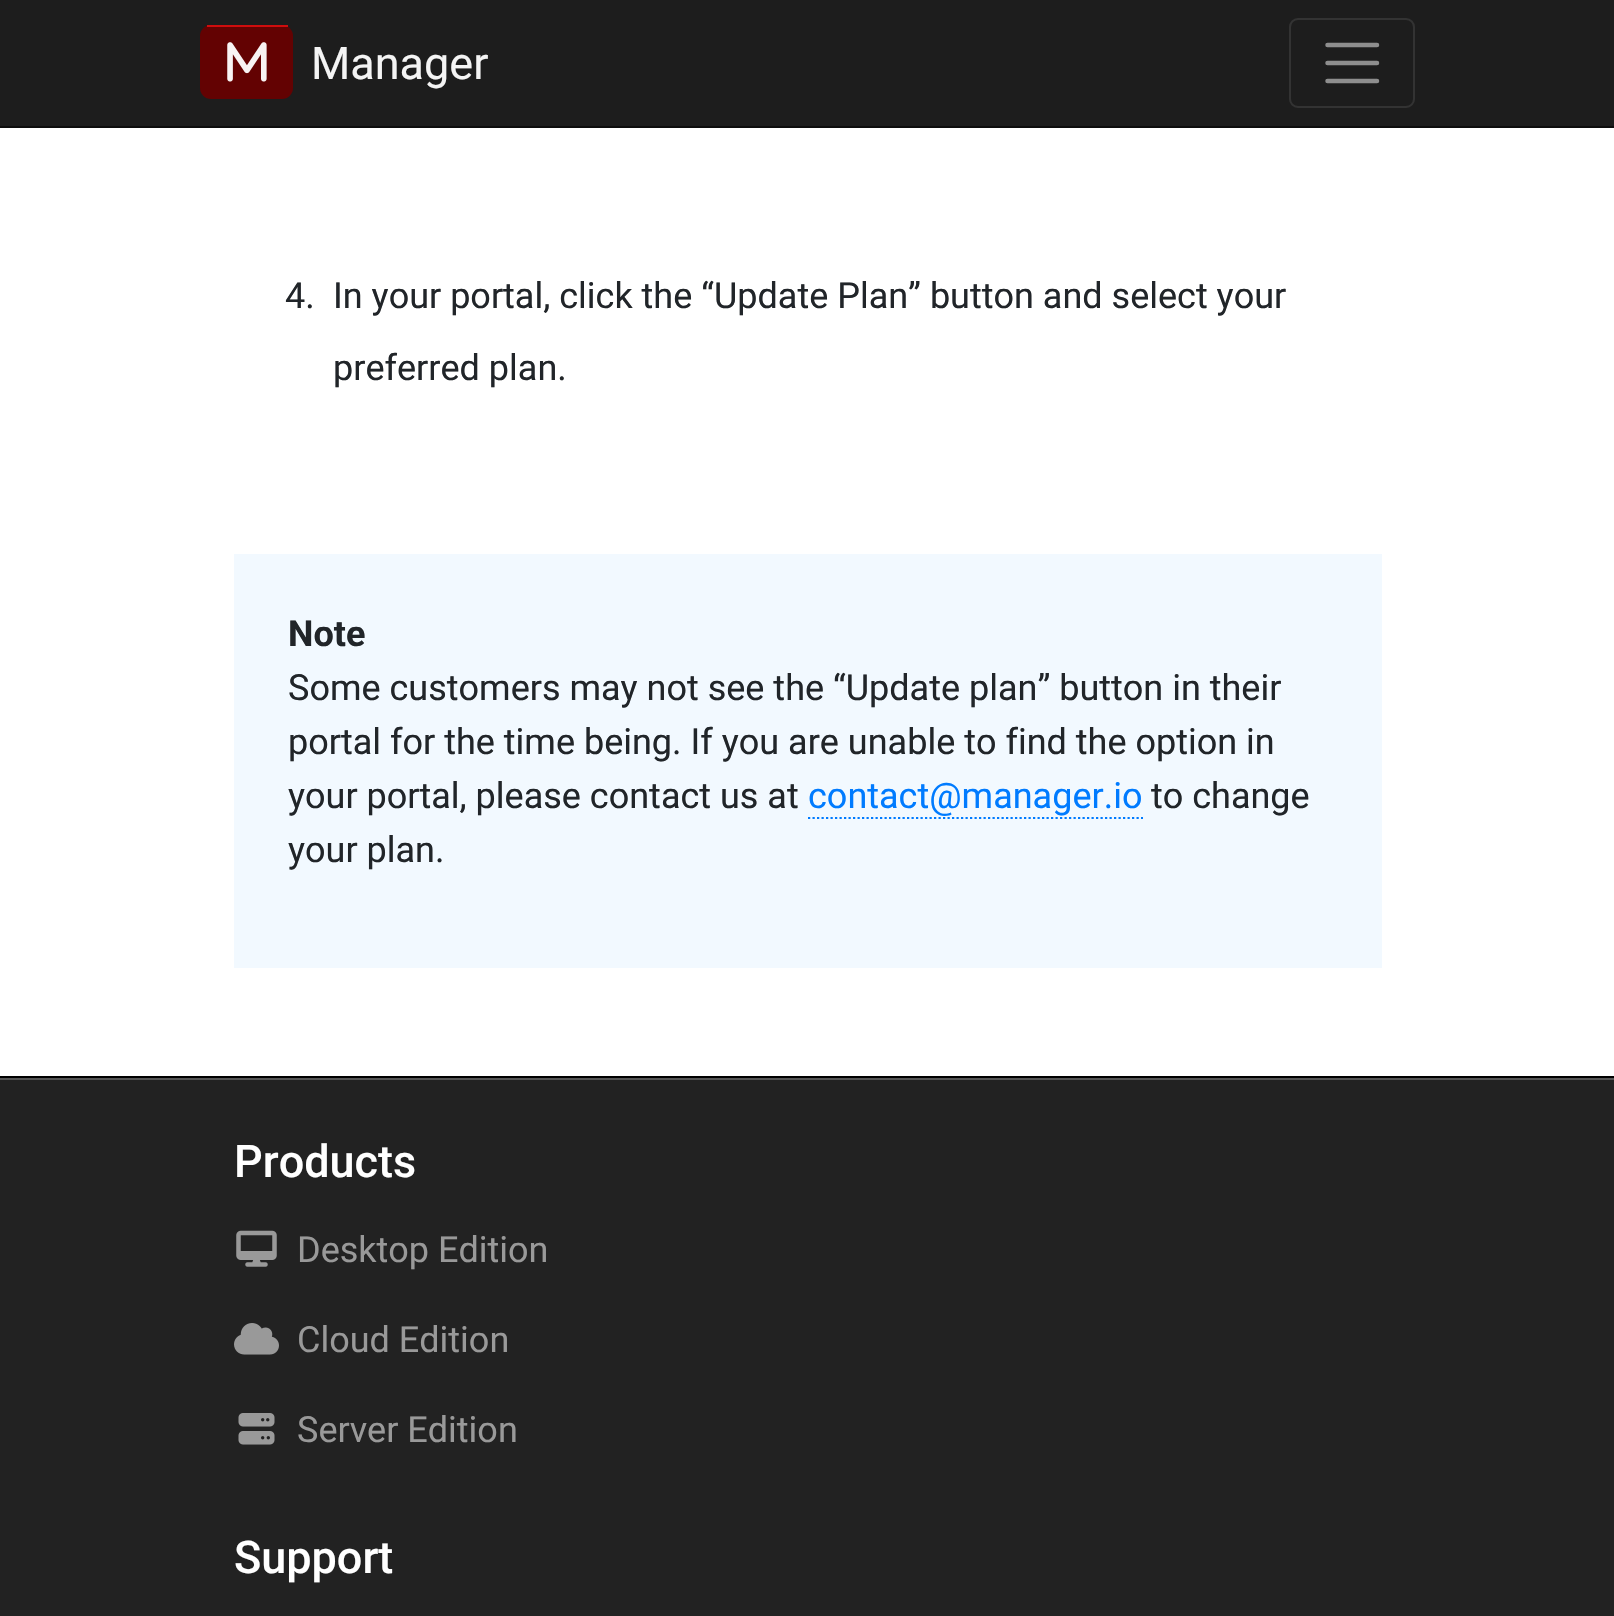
void draw(SkCanvas* canvas) {
  SkPaint paint;
  paint.setAntiAlias(true);
  auto face = [&](const char* family, int weight, float size, bool italic = false) {
    SkFontStyle style(weight, SkFontStyle::kNormal_Width,
      italic ? SkFontStyle::kItalic_Slant : SkFontStyle::kUpright_Slant);
    SkFont result(fontMgr->matchFamilyStyle(family, style), size);
    result.setSubpixel(true);
    return result;
  };
  auto paste = [&](const char* path, float x, float y, float w, float h) {
    auto image = SkImages::DeferredFromEncodedData(SkData::MakeFromFileName(path));
    canvas->drawImageRect(image, SkRect::MakeXYWH(x, y, w, h), SkSamplingOptions());
  };
  auto shape = [&](const char* data, bool evenOdd = false) {
    SkPath result = *SkParsePath::FromSVGString(data);
    if (evenOdd) result.setFillType(SkPathFillType::kEvenOdd);
    return result;
  };
  canvas->clear(0xffffffff);
  paint.setColor(0xff0d0d0d);
  canvas->drawRect(SkRect::MakeXYWH(0, 126, 1614, 2), paint);
  paint.setColor(0xff1d1d1d);
  canvas->drawRect(SkRect::MakeXYWH(0, 0, 1614, 126), paint);
  paint.setColor(0xf2660000);
  canvas->drawRoundRect(SkRect::MakeXYWH(200, 25, 93, 74), 11, 11, paint);
  paint.setColor(0xffcf0d0d);
  canvas->drawRect(SkRect::MakeXYWH(207, 25, 81, 2), paint);
  paste("img/1.png", 227, 42, 40, 40);
  paint.setStroke(true);
  paint.setStrokeWidth(2);
  paint.setColor(0xff333333);
  canvas->drawRoundRect(SkRect::MakeXYWH(1290, 19, 124, 88), 8, 8, paint);
  paint.setStrokeWidth(4.5f);
  paint.setStrokeCap(SkPaint::kRound_Cap);
  paint.setColor(0xff8e8e8e);
  canvas->drawPath(shape("M1327.5 45H1377M1327.5 63H1377M1327.5 81H1377"), paint);
  paint.setStroke(false);
  paint.setColor(0xfff2f9ff);
  canvas->drawRect(SkRect::MakeXYWH(234, 554, 1148, 414), paint);
  paint.setStroke(true);
  paint.setStrokeWidth(2.2f);
  paint.setStrokeCap(SkPaint::kButt_Cap);
  paint.setColor(0xff007bff);
  paint.setPathEffect(SkDashPathEffect::Make({{2.25f, 2.25f}}, 0));
  canvas->drawPath(shape("M808 818H1143"), paint);
  paint.setPathEffect(nullptr);
  paint.setStroke(false);
  {
    const struct { float x, y, w, h; SkColor color; } items[] = {
      {0, 1076, 1614, 2, 0xff000000},
      {0, 1080, 1614, 536, 0xff222222},
      {0, 1078, 1614, 2, 0xff555555},
    };
    for (auto [x, y, w, h, color] : items) {
      paint.setColor(color);
      canvas->drawRect(SkRect::MakeXYWH(x, y, w, h), paint);
    }
  }
  paste("img/2.png", 236, 1230, 41, 37);
  paste("img/3.png", 234, 1323, 45, 32);
  paste("img/4.png", 238, 1413, 37, 32);
  auto f0 = face("Roboto", 400, 45);
  paint.setColor(0xfff4f4f4);
  canvas->drawString("Manager", 311, 79, f0, paint);
  auto f1 = face("Roboto", 400, 36);
  paint.setColor(0xff212529);
  {
    const struct { const char* s; float x, y; } items[] = {
      {"4.", 285, 308},
      {"In your portal, click the “Update Plan” button and select your", 333, 308},
      {"preferred plan.", 333, 380},
    };
    for (auto [s, x, y] : items) {
      canvas->drawString(s, x, y, f1, paint);
    }
  }
  auto f2 = face("Roboto", 700, 36);
  canvas->drawString("Note", 288, 646, f2, paint);
  {
    const struct { const char* s; float x, y; } items[] = {
      {"Some customers may not see the “Update plan” button in their", 288, 700},
      {"portal for the time being. If you are unable to find the option in", 288, 754},
      {"your portal, please contact us at", 288, 808},
    };
    for (auto [s, x, y] : items) {
      canvas->drawString(s, x, y, f1, paint);
    }
  }
  paint.setColor(0xff007bff);
  canvas->drawString("contact@manager.io", 808, 808, f1, paint);
  paint.setColor(0xff212529);
  canvas->drawString("to change", 1151, 808, f1, paint);
  canvas->drawString("your plan.", 288, 862, f1, paint);
  auto f3 = face("Roboto", 500, 45);
  paint.setColor(0xffffffff);
  canvas->drawString("Products", 234, 1177, f3, paint);
  paint.setColor(0xff999999);
  {
    const struct { const char* s; float x, y; } items[] = {
      {"Desktop Edition", 297, 1262},
      {"Cloud Edition", 297, 1352},
      {"Server Edition", 297, 1442},
    };
    for (auto [s, x, y] : items) {
      canvas->drawString(s, x, y, f1, paint);
    }
  }
  paint.setColor(0xffffffff);
  canvas->drawString("Support", 234, 1573, f3, paint);
}
